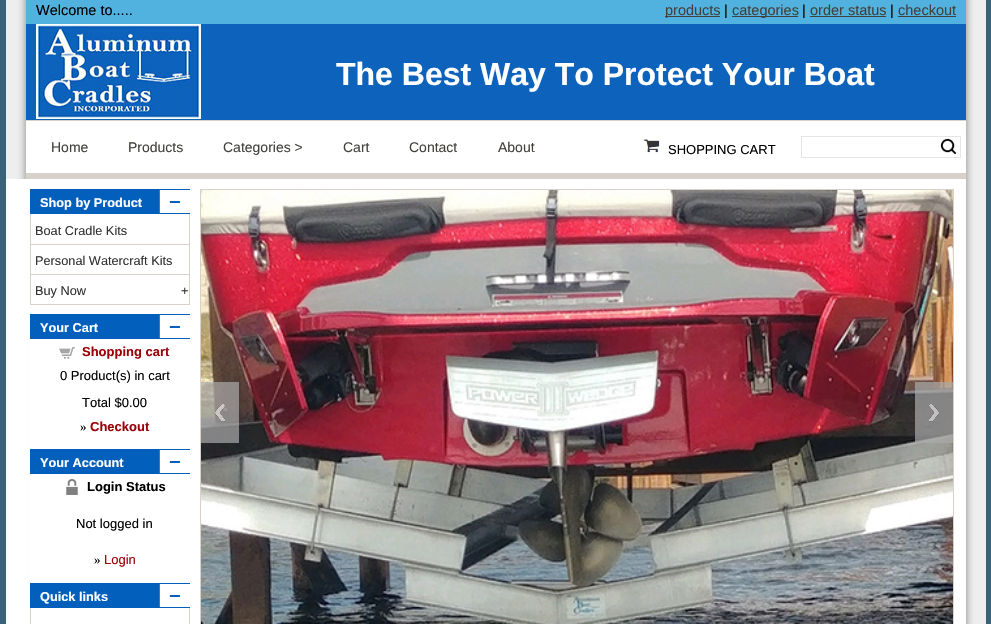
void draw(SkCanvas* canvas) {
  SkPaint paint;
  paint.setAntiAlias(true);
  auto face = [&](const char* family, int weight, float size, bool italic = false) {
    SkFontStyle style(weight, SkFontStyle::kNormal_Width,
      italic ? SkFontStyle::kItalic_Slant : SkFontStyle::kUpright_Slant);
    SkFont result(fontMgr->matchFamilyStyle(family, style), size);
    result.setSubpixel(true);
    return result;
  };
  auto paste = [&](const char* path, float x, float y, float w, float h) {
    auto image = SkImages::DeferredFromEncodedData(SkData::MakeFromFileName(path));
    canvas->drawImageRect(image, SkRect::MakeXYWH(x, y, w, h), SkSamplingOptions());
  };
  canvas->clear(0xff386278);
  paste("img/1.png", 6, 0, 980, 624);
  {
    const struct { float x, y, w, h; SkColor color; } items[] = {
      {26, 0, 940, 24, 0xff51b2df},
      {665, 16, 55, 1, 0xff42413c},
      {732, 16, 66, 1, 0xff42413c},
      {810, 16, 76, 1, 0xff42413c},
      {898, 16, 58, 1, 0xff42413c},
      {26, 24, 940, 96, 0xff0d62bc},
      {26, 120, 940, 1, 0xffd7d1c9},
    };
    for (auto [x, y, w, h, color] : items) {
      paint.setColor(color);
      canvas->drawRect(SkRect::MakeXYWH(x, y, w, h), paint);
    }
  }
  paste("img/2.png", 36, 24, 165, 95);
  paste("img/3.png", 643, 139, 17, 14);
  paint.setStroke(true);
  paint.setStrokeWidth(1);
  paint.setColor(0xffe5e5e5);
  canvas->drawRect(SkRect::MakeXYWH(801.5f, 136.5f, 159, 21), paint);
  paste("img/4.png", 940, 138, 17, 17);
  paint.setStroke(false);
  paint.setColor(0xffd7d1c9);
  canvas->drawRect(SkRect::MakeXYWH(26, 173, 940, 6), paint);
  paint.setColor(0xffffffff);
  canvas->drawRect(SkRect::MakeXYWH(6, 179, 20, 445), paint);
  paste("img/5.png", 30, 189, 160, 25);
  {
    const struct { float x, y, w, h; SkColor color; } items[] = {
      {189, 214, 1, 31, 0xffd7d1c9},
      {30, 244, 160, 1, 0xffd7d1c9},
      {30, 214, 1, 31, 0xffd7d1c9},
      {189, 244, 1, 31, 0xffd7d1c9},
      {30, 274, 160, 1, 0xffd7d1c9},
      {30, 244, 1, 31, 0xffd7d1c9},
      {189, 274, 1, 31, 0xffd7d1c9},
      {30, 304, 160, 1, 0xffd7d1c9},
      {30, 274, 1, 31, 0xffd7d1c9},
    };
    for (auto [x, y, w, h, color] : items) {
      paint.setColor(color);
      canvas->drawRect(SkRect::MakeXYWH(x, y, w, h), paint);
    }
  }
  paste("img/5.png", 30, 314, 160, 25);
  paste("img/6.png", 59, 347, 16, 12);
  paste("img/5.png", 30, 449, 160, 25);
  paste("img/7.png", 66, 479, 12, 16);
  paste("img/5.png", 30, 583, 160, 25);
  canvas->drawRect(SkRect::MakeXYWH(189, 608, 1, 16), paint);
  canvas->drawRect(SkRect::MakeXYWH(30, 608, 1, 16), paint);
  paint.setStroke(true);
  canvas->drawRect(SkRect::MakeXYWH(200.5f, 189.5f, 753, 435), paint);
  paste("img/8.png", 201, 190, 752, 434);
  paste("img/9.png", 201, 382, 38, 61);
  paste("img/10.png", 915, 382, 38, 61);
  auto f0 = face("Liberation Sans", 400, 14.5f);
  paint.setStroke(false);
  paint.setColor(0xff000000);
  canvas->drawString("Welcome to.....", 36, 15, f0, paint);
  paint.setColor(0xff42413c);
  canvas->drawString("products", 665, 15, f0, paint);
  paint.setColor(0xff000000);
  canvas->drawString("|", 724, 15, f0, paint);
  paint.setColor(0xff42413c);
  canvas->drawString("categories", 732, 15, f0, paint);
  paint.setColor(0xff000000);
  canvas->drawString("|", 802, 15, f0, paint);
  paint.setColor(0xff42413c);
  canvas->drawString("order status", 810, 15, f0, paint);
  paint.setColor(0xff000000);
  canvas->drawString("|", 890, 15, f0, paint);
  paint.setColor(0xff42413c);
  canvas->drawString("checkout", 898, 15, f0, paint);
  auto f1 = face("Liberation Sans", 700, 32);
  paint.setColor(0xffffffff);
  canvas->drawString("The Best Way To Protect Your Boat", 336, 85, f1, paint);
  auto f2 = face("Liberation Sans", 400, 14);
  paint.setColor(0xff42413c);
  {
    const struct { const char* s; float x, y; } items[] = {
      {"Home", 51, 152},
      {"Products", 128, 152},
      {"Categories >", 223, 152},
      {"Cart", 343, 152},
      {"Contact", 409, 152},
      {"About", 498, 152},
    };
    for (auto [s, x, y] : items) {
      canvas->drawString(s, x, y, f2, paint);
    }
  }
  auto f3 = face("Liberation Sans", 400, 13);
  paint.setColor(0xff000000);
  canvas->drawString("SHOPPING CART", 668, 154, f3, paint);
  auto f4 = face("Liberation Sans", 700, 12.75f);
  paint.setColor(0xffffffff);
  canvas->drawString("Shop by Product", 40, 207, f4, paint);
  auto f5 = face("Liberation Sans", 400, 12.75f);
  paint.setColor(0xff333333);
  {
    const struct { const char* s; float x, y; } items[] = {
      {"Boat Cradle Kits", 35, 235},
      {"Personal Watercraft Kits", 35, 265},
      {"Buy Now", 35, 295},
      {"+", 181, 295},
    };
    for (auto [s, x, y] : items) {
      canvas->drawString(s, x, y, f5, paint);
    }
  }
  paint.setColor(0xffffffff);
  canvas->drawString("Your Cart", 40, 332, f4, paint);
  auto f6 = face("Liberation Sans", 700, 13);
  paint.setColor(0xff9a0308);
  canvas->drawString("Shopping cart", 82, 356, f6, paint);
  paint.setColor(0xff000000);
  canvas->drawString("0 Product(s) in cart", 60, 380, f3, paint);
  canvas->drawString("Total $0.00", 82, 407, f3, paint);
  auto f7 = face("Liberation Serif", 400, 13);
  canvas->drawString("»", 80, 431, f7, paint);
  paint.setColor(0xff9a0308);
  canvas->drawString("Checkout", 90, 431, f6, paint);
  paint.setColor(0xffffffff);
  canvas->drawString("Your Account", 40, 467, f4, paint);
  paint.setColor(0xff000000);
  canvas->drawString("Login Status", 87, 491, f6, paint);
  canvas->drawString("Not logged in", 76, 528, f3, paint);
  canvas->drawString("»", 94, 564, f7, paint);
  paint.setColor(0xff9a0308);
  canvas->drawString("Login", 104, 564, f3, paint);
  paint.setColor(0xffffffff);
  canvas->drawString("Quick links", 40, 601, f4, paint);
}
